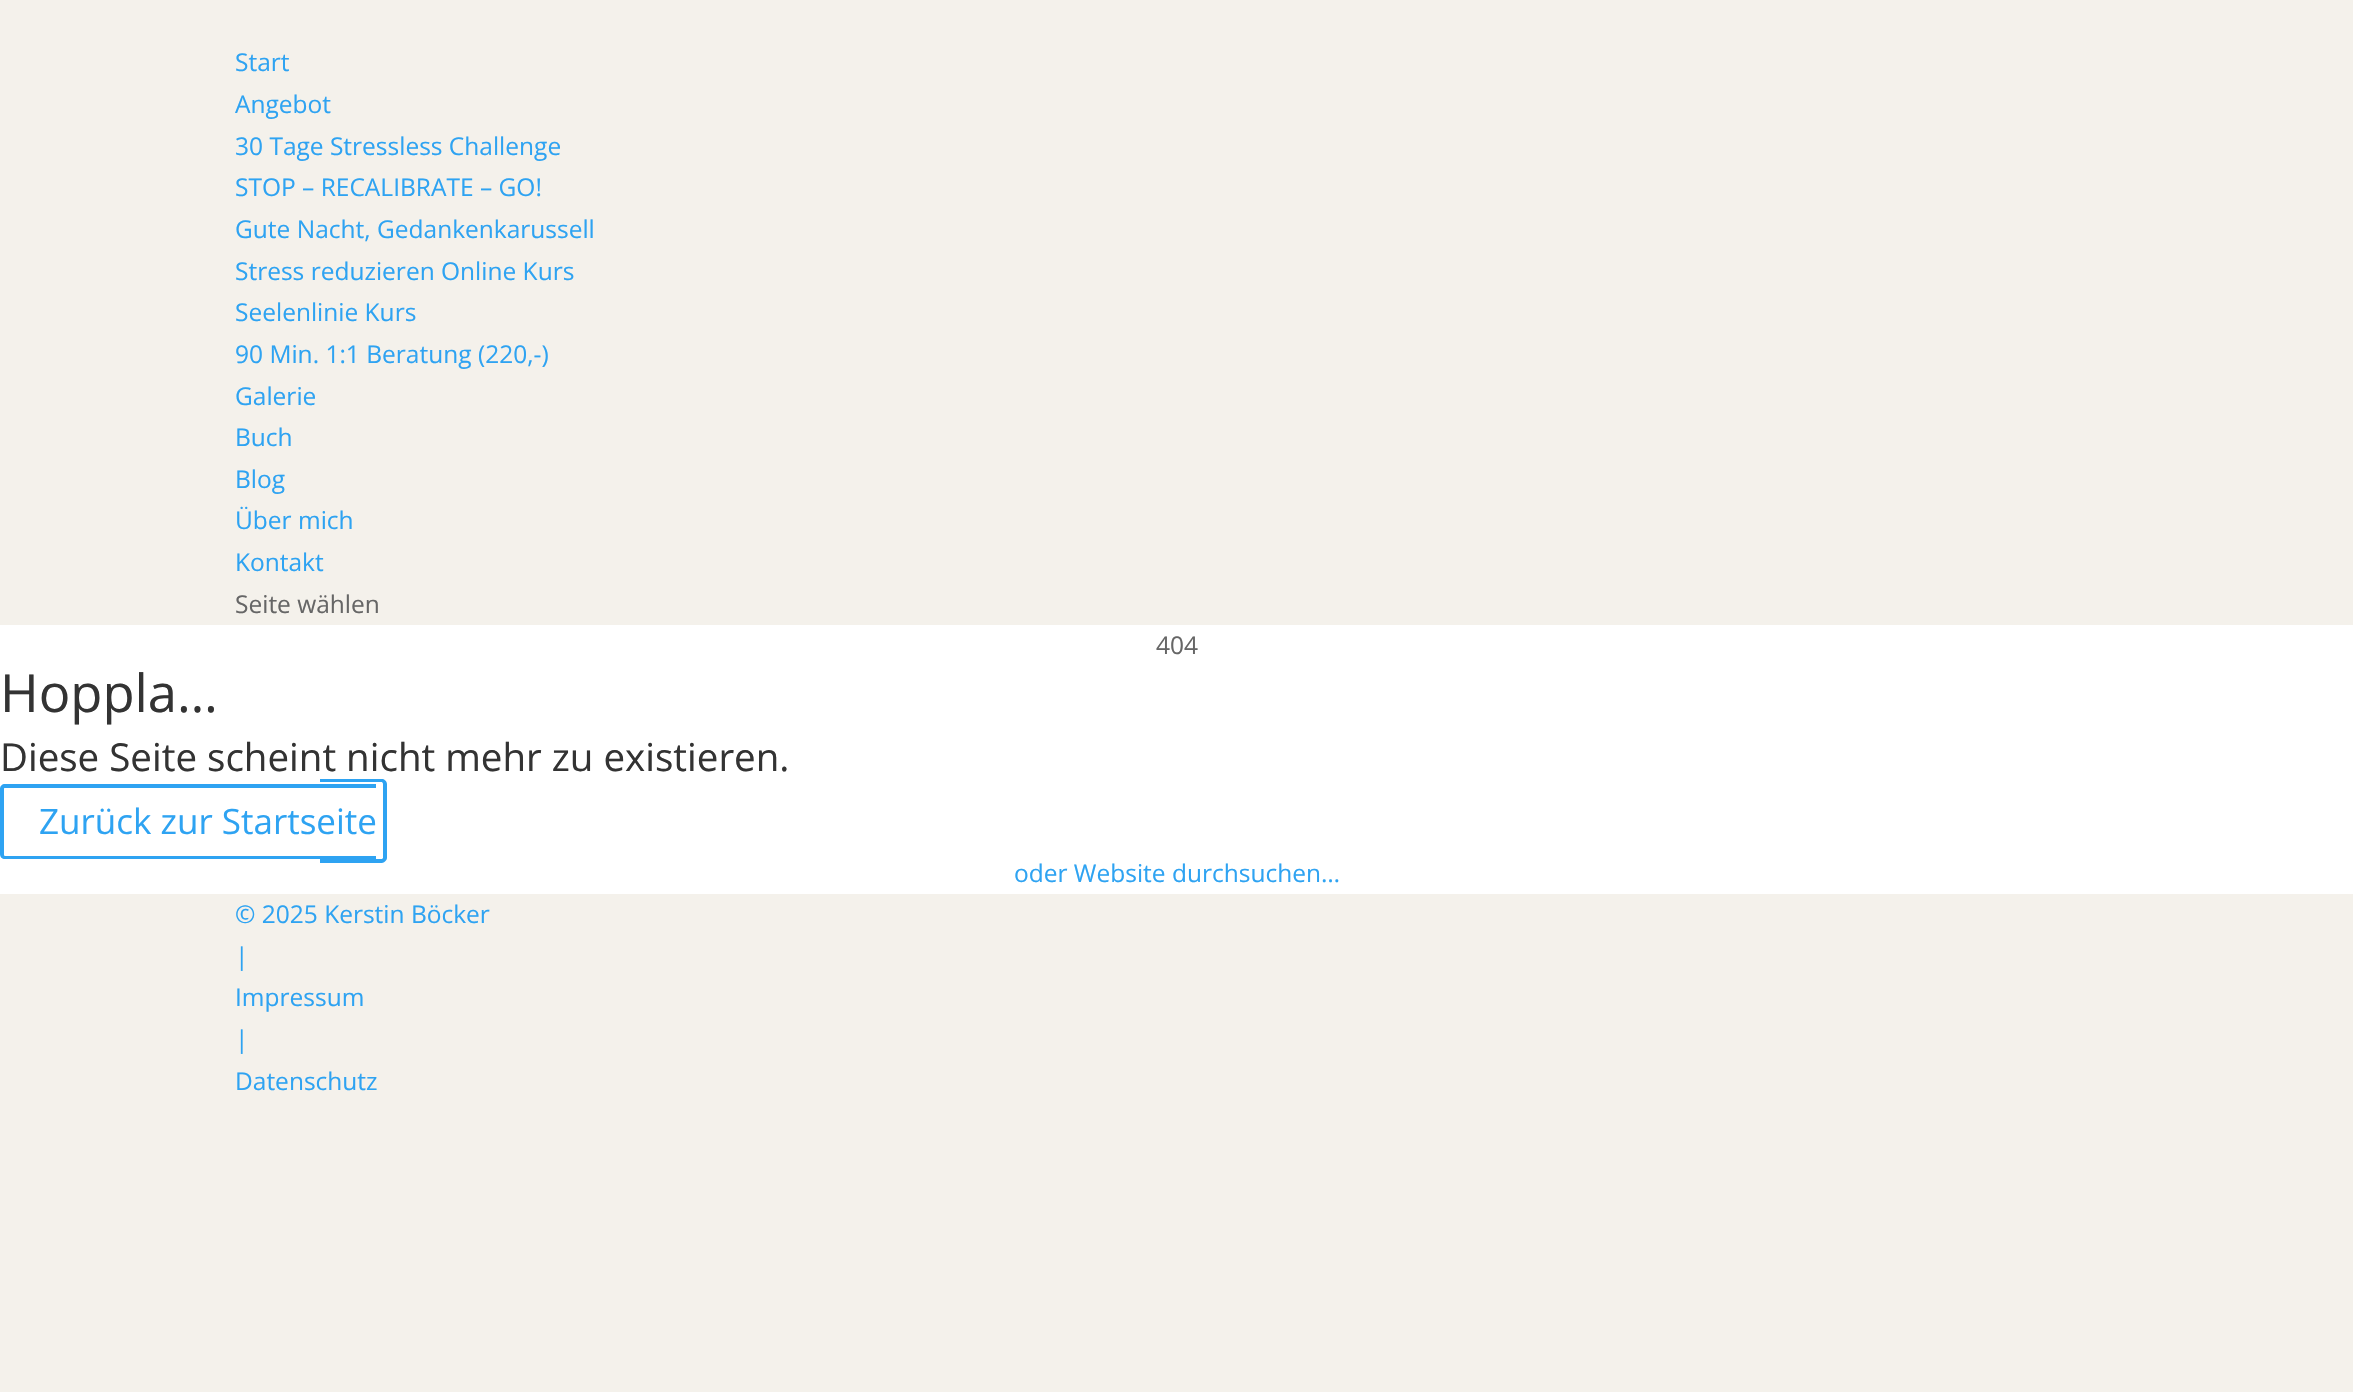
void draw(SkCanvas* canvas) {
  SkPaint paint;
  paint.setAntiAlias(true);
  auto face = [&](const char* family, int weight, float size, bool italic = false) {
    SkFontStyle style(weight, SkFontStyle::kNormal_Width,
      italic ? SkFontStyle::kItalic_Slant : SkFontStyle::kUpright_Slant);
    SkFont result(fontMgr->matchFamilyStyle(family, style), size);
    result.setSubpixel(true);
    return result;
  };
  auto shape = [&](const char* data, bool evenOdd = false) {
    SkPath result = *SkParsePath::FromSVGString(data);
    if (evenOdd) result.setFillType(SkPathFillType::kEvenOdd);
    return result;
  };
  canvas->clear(0xfff4f1eb);
  paint.setColor(0xffffffff);
  canvas->drawRect(SkRect::MakeXYWH(0, 625, 2353, 269), paint);
  paint.setColor(0xff2ea3f2);
  canvas->drawPath(shape("M5 784H376V859H5C2 859 0 857 0 854V789C0 786 2 784 5 784ZM5 788H376V856H5C4 856 4 855 4 854V789C4 788 4 788 5 788Z", true), paint);
  canvas->drawPath(shape("M320 779H382C384 779 387 781 387 784V858C387 860 384 863 382 863H320ZM320 782H382C382 782 383 783 383 784V858C383 858 382 859 382 859H320Z", true), paint);
  auto f0 = face("Open Sans", 400, 24.5f);
  {
    const struct { const char* s; float x, y; } items[] = {
      {"Start", 235, 71},
      {"Angebot", 235, 113},
      {"30 Tage Stressless Challenge", 235, 155},
      {"STOP – RECALIBRATE – GO!", 235, 196},
      {"Gute Nacht, Gedankenkarussell", 235, 238},
      {"Stress reduzieren Online Kurs", 235, 280},
      {"Seelenlinie Kurs", 235, 321},
      {"90 Min. 1:1 Beratung (220,-)", 235, 363},
      {"Galerie", 235, 405},
      {"Buch", 235, 446},
      {"Blog", 235, 488},
      {"Über mich", 235, 529},
      {"Kontakt", 235, 571},
    };
    for (auto [s, x, y] : items) {
      canvas->drawString(s, x, y, f0, paint);
    }
  }
  paint.setColor(0xff666666);
  canvas->drawString("Seite wählen", 235, 613, f0, paint);
  canvas->drawString("404", 1156, 654, f0, paint);
  auto f1 = face("Open Sans", 400, 52.5f);
  paint.setColor(0xff333333);
  canvas->drawString("Hoppla…", 0, 712, f1, paint);
  auto f2 = face("Open Sans", 400, 38.5f);
  canvas->drawString("Diese Seite scheint nicht mehr zu existieren.", 0, 771, f2, paint);
  auto f3 = face("Open Sans", 400, 35);
  paint.setColor(0xff2ea3f2);
  canvas->drawString("Zurück zur Startseite", 39, 834, f3, paint);
  {
    const struct { const char* s; float x, y; } items[] = {
      {"oder Website durchsuchen…", 1014, 882},
      {"© 2025 Kerstin Böcker", 235, 923},
      {"|", 235, 965},
      {"Impressum", 235, 1006},
      {"|", 235, 1048},
      {"Datenschutz", 235, 1090},
    };
    for (auto [s, x, y] : items) {
      canvas->drawString(s, x, y, f0, paint);
    }
  }
}
